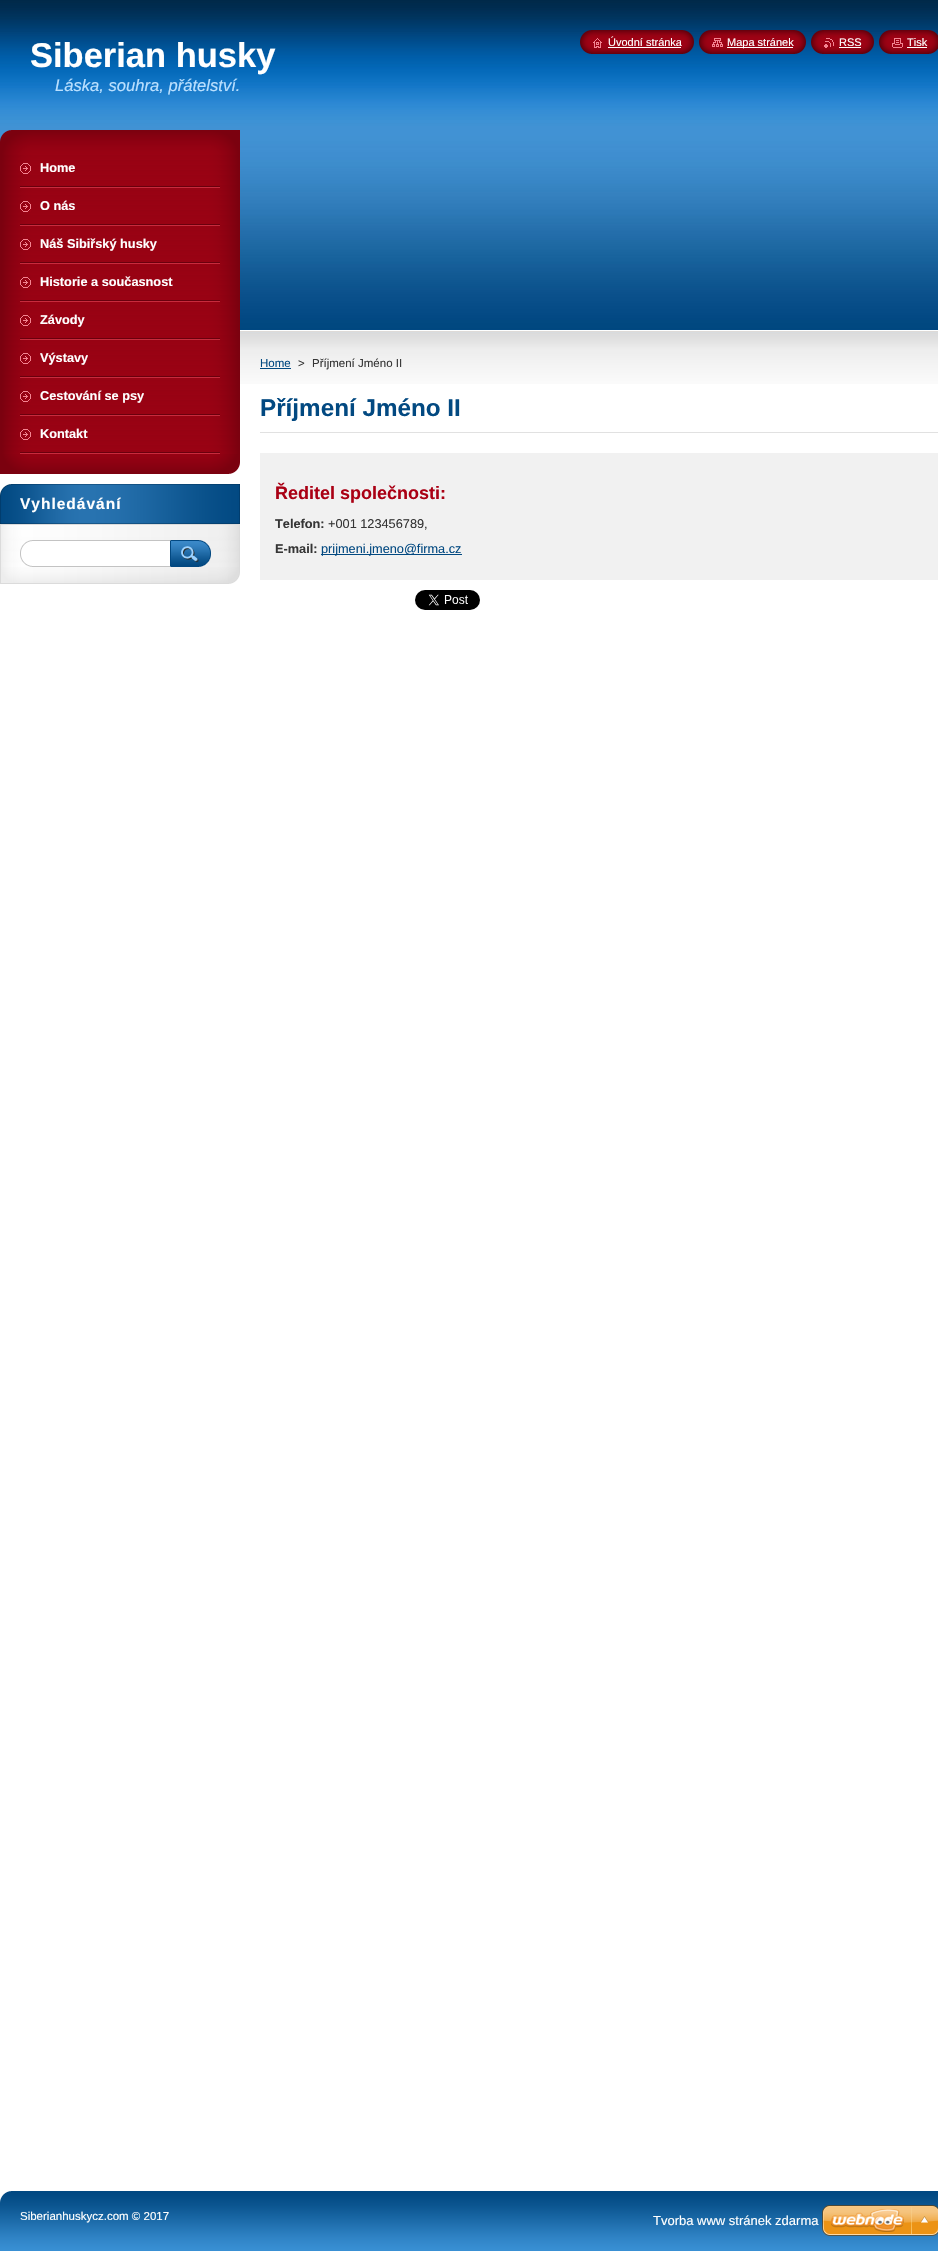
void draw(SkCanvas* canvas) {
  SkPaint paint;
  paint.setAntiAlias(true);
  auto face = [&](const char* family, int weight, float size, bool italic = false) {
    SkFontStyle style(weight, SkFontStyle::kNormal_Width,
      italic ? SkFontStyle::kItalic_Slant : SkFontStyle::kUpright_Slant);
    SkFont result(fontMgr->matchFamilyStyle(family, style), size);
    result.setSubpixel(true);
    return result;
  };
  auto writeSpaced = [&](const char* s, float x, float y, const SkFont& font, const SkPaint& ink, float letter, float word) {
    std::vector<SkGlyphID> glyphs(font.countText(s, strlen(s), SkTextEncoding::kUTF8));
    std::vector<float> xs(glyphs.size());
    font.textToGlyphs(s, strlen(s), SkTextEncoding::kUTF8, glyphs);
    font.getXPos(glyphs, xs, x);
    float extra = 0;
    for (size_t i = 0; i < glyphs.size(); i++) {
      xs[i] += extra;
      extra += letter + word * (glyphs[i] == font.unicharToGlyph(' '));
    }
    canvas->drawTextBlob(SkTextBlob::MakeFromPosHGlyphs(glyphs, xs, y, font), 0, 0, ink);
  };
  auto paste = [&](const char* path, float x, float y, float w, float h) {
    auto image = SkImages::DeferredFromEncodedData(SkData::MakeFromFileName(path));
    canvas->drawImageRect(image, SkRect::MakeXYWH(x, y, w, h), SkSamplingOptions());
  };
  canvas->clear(0xffffffff);
  paste("img/1.png", 0, 0, 938, 384);
  paste("img/2.png", 580, 30, 13, 24);
  paste("img/3.png", 593, 30, 101, 24);
  paste("img/4.png", 593, 38, 9, 10);
  paint.setColor(0xffffffff);
  canvas->drawRect(SkRect::MakeXYWH(608, 47, 73, 1), paint);
  paste("img/2.png", 699, 30, 13, 24);
  paste("img/5.png", 712, 30, 94, 24);
  paste("img/6.png", 712, 38, 11, 9);
  canvas->drawRect(SkRect::MakeXYWH(727, 47, 66, 1), paint);
  paste("img/2.png", 811, 30, 13, 24);
  paste("img/7.png", 824, 30, 50, 24);
  paste("img/8.png", 824, 38, 10, 10);
  canvas->drawRect(SkRect::MakeXYWH(839, 47, 22, 1), paint);
  paste("img/2.png", 879, 30, 13, 24);
  paste("img/9.png", 892, 30, 46, 24);
  paste("img/10.png", 892, 38, 11, 10);
  canvas->drawRect(SkRect::MakeXYWH(907, 47, 20, 1), paint);
  paste("img/11.png", 0, 130, 240, 20);
  paste("img/12.png", 0, 454, 240, 20);
  paste("img/13.png", 0, 150, 240, 304);
  paste("img/14.png", 20, 186, 200, 2);
  paste("img/15.png", 20, 163, 11, 11);
  paste("img/14.png", 20, 224, 200, 2);
  paste("img/15.png", 20, 201, 11, 11);
  paste("img/14.png", 20, 262, 200, 2);
  paste("img/15.png", 20, 239, 11, 11);
  paste("img/14.png", 20, 300, 200, 2);
  paste("img/15.png", 20, 277, 11, 11);
  paste("img/14.png", 20, 338, 200, 2);
  paste("img/15.png", 20, 315, 11, 11);
  paste("img/14.png", 20, 376, 200, 2);
  paste("img/15.png", 20, 353, 11, 11);
  paste("img/14.png", 20, 414, 200, 2);
  paste("img/15.png", 20, 391, 11, 11);
  paste("img/14.png", 20, 452, 200, 2);
  paste("img/15.png", 20, 429, 11, 11);
  paste("img/16.png", 0, 567, 240, 17);
  paste("img/17.png", 0, 484, 240, 40);
  paste("img/18.png", 0, 525, 240, 42);
  paint.setColor(0xffdbdbdb);
  canvas->drawRect(SkRect::MakeXYWH(0, 524, 240, 1), paint);
  paste("img/19.png", 20, 540, 150, 27);
  paste("img/20.png", 170, 540, 41, 27);
  {
    const struct { float x, y, w, h; SkColor color; } items[] = {
      {260, 368, 31, 1, 0xff024981},
      {260, 432, 678, 1, 0xffe1e1e1},
      {260, 453, 678, 127, 0xfff1f1f1},
      {321, 554, 141, 1, 0xff024981},
    };
    for (auto [x, y, w, h, color] : items) {
      paint.setColor(color);
      canvas->drawRect(SkRect::MakeXYWH(x, y, w, h), paint);
    }
  }
  paste("img/21.png", 415, 590, 65, 20);
  paste("img/22.png", 0, 2191, 938, 60);
  paste("img/23.png", 822, 2205, 116, 31);
  auto f0 = face("Liberation Sans", 700, 34.5f);
  paint.setColor(0xffffffff);
  canvas->drawString("Siberian husky", 30, 67, f0, paint);
  auto f1 = face("Liberation Sans", 400, 16.6f, true);
  paint.setColor(0xffbae0ff);
  canvas->drawString("Láska, souhra, přátelství.", 55, 91, f1, paint);
  auto f2 = face("Liberation Sans", 400, 11);
  paint.setColor(0xffffffff);
  {
    const struct { const char* s; float x, y; } items[] = {
      {"Úvodní stránka", 608, 46},
      {"Mapa stránek", 727, 46},
      {"RSS", 839, 46},
      {"Tisk", 907, 46},
    };
    for (auto [s, x, y] : items) {
      canvas->drawString(s, x, y, f2, paint);
    }
  }
  auto f3 = face("Liberation Sans", 700, 12.75f);
  {
    const struct { const char* s; float x, y; } items[] = {
      {"Home", 40, 172},
      {"O nás", 40, 210},
      {"Náš Sibiřský husky", 40, 248},
      {"Historie a současnost", 40, 286},
      {"Závody", 40, 324},
      {"Výstavy", 40, 362},
      {"Cestování se psy", 40, 400},
      {"Kontakt", 40, 438},
    };
    for (auto [s, x, y] : items) {
      canvas->drawString(s, x, y, f3, paint);
    }
  }
  auto f4 = face("Liberation Sans", 700, 15.5f);
  writeSpaced("Vyhledávání", 20, 509, f4, paint, 1, 0);
  auto f5 = face("Liberation Sans", 400, 11.5f);
  paint.setColor(0xff024981);
  canvas->drawString("Home", 260, 367, f5, paint);
  paint.setColor(0xff363636);
  canvas->drawString(">", 298, 367, f5, paint);
  canvas->drawString("Příjmení Jméno II", 312, 367, f5, paint);
  auto f6 = face("Liberation Sans", 700, 24.25f);
  paint.setColor(0xff024981);
  canvas->drawString("Příjmení Jméno II", 260, 416, f6, paint);
  auto f7 = face("Liberation Sans", 700, 18);
  paint.setColor(0xffaa0014);
  canvas->drawString("Ředitel společnosti:", 275, 499, f7, paint);
  paint.setColor(0xff363636);
  canvas->drawString("Telefon:", 275, 528, f3, paint);
  auto f8 = face("Liberation Sans", 400, 12.75f);
  canvas->drawString("+001 123456789,", 328, 528, f8, paint);
  canvas->drawString("E-mail:", 275, 553, f3, paint);
  paint.setColor(0xff024981);
  canvas->drawString("prijmeni.jmeno@firma.cz", 321, 553, f8, paint);
  paint.setColor(0xffffffff);
  canvas->drawString("Siberianhuskycz.com © 2017", 20, 2220, f5, paint);
  auto f9 = face("Liberation Sans", 400, 13);
  canvas->drawString("Tvorba www stránek zdarma", 653, 2225, f9, paint);
}
